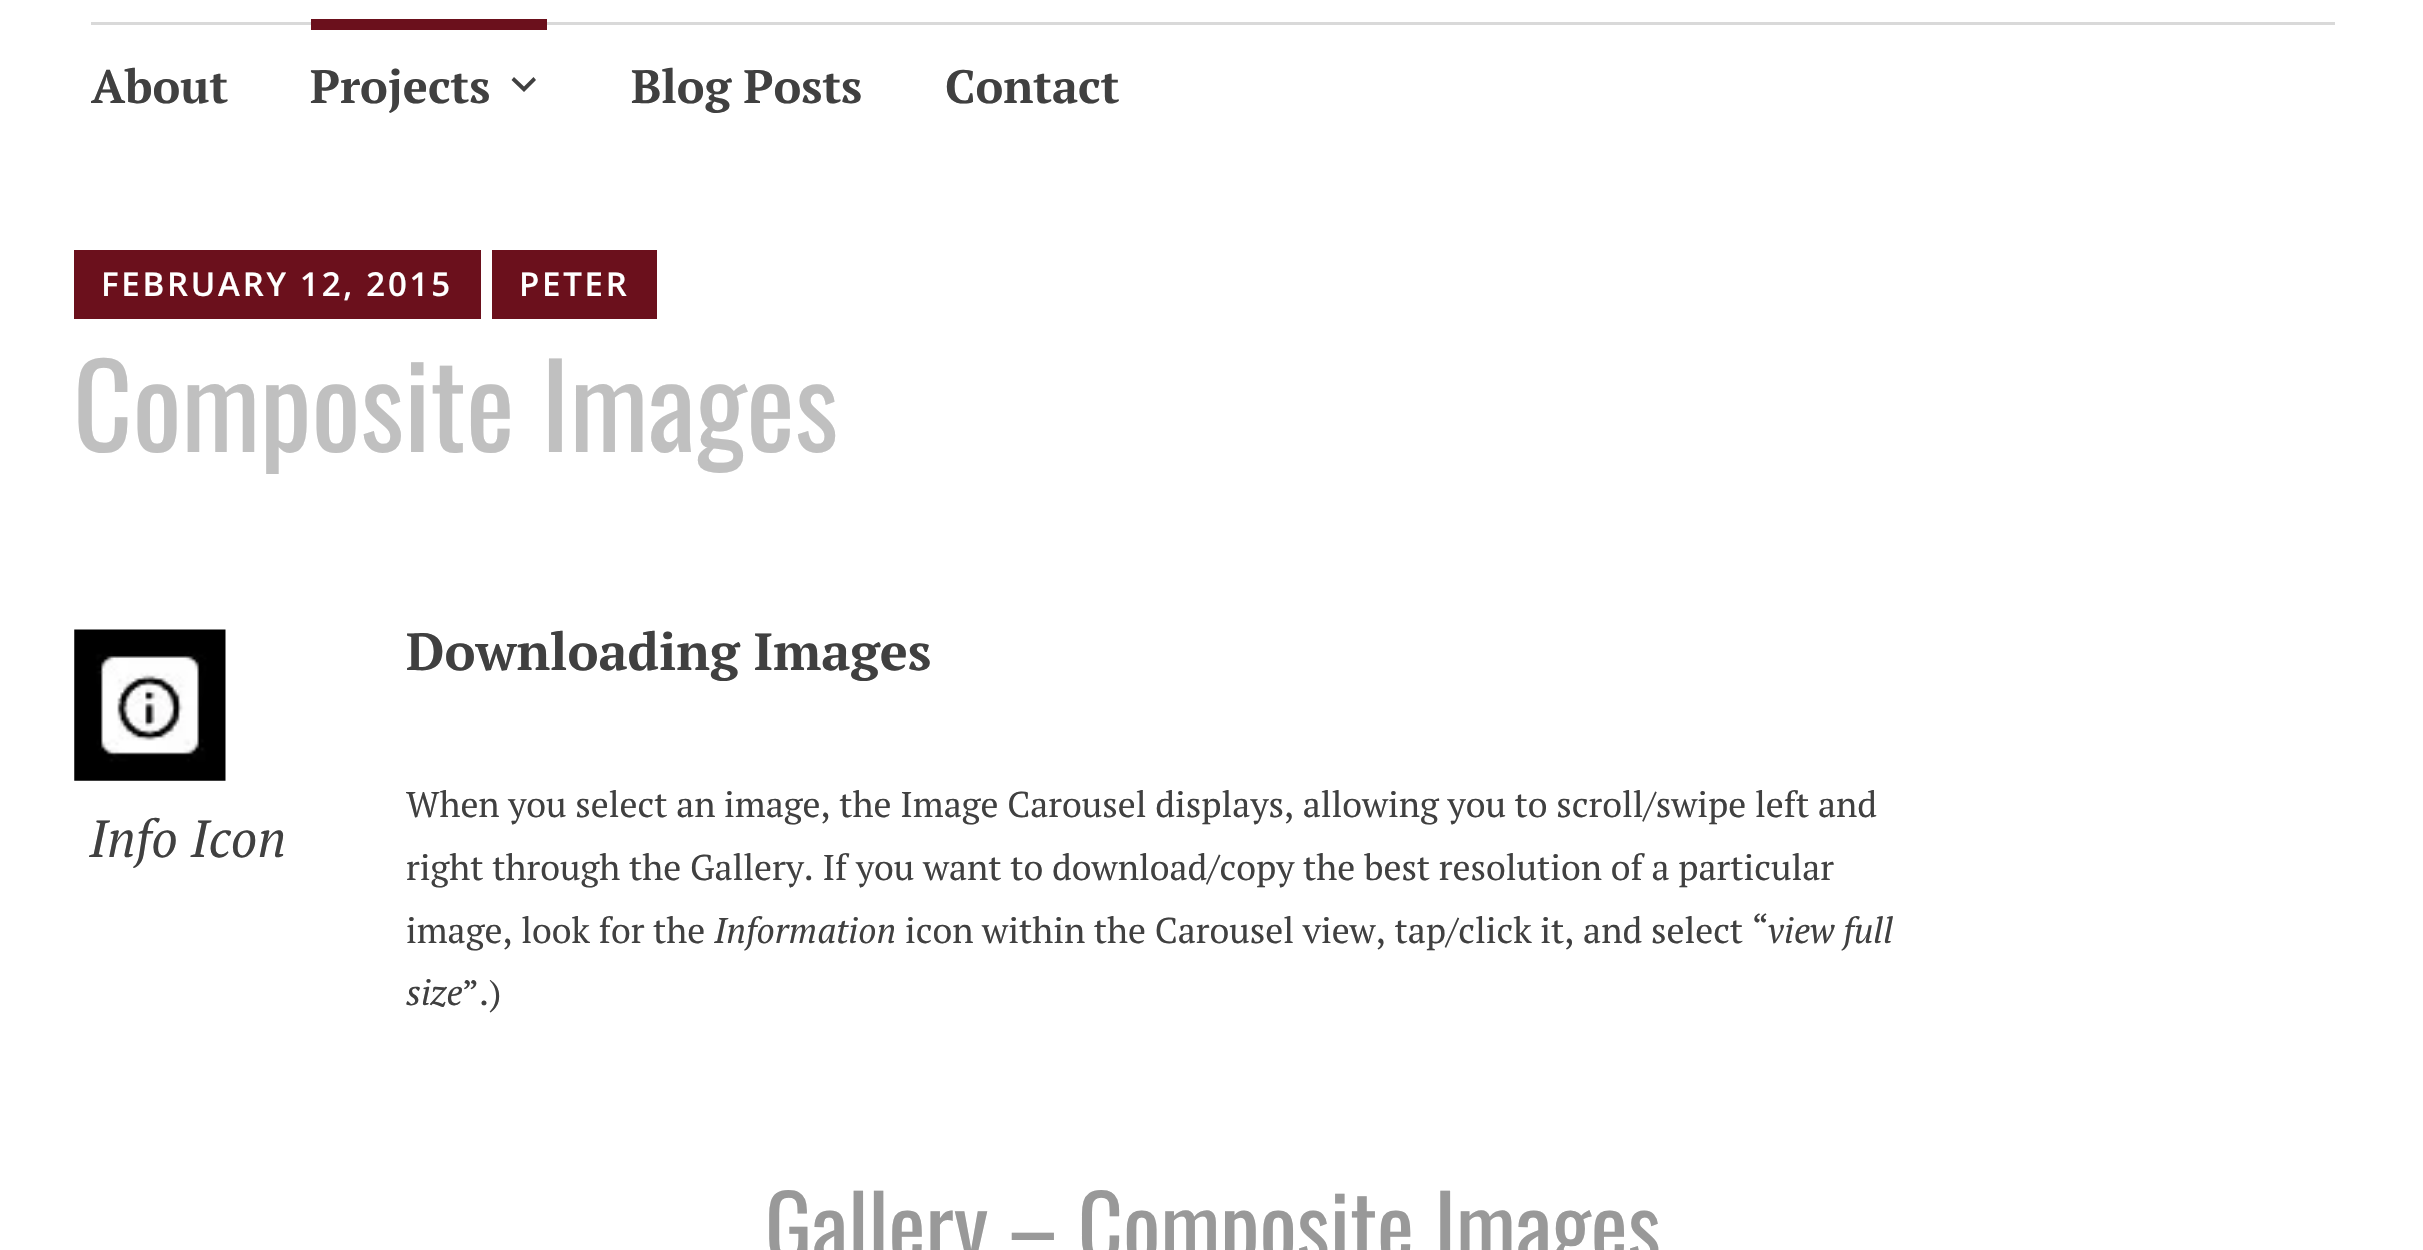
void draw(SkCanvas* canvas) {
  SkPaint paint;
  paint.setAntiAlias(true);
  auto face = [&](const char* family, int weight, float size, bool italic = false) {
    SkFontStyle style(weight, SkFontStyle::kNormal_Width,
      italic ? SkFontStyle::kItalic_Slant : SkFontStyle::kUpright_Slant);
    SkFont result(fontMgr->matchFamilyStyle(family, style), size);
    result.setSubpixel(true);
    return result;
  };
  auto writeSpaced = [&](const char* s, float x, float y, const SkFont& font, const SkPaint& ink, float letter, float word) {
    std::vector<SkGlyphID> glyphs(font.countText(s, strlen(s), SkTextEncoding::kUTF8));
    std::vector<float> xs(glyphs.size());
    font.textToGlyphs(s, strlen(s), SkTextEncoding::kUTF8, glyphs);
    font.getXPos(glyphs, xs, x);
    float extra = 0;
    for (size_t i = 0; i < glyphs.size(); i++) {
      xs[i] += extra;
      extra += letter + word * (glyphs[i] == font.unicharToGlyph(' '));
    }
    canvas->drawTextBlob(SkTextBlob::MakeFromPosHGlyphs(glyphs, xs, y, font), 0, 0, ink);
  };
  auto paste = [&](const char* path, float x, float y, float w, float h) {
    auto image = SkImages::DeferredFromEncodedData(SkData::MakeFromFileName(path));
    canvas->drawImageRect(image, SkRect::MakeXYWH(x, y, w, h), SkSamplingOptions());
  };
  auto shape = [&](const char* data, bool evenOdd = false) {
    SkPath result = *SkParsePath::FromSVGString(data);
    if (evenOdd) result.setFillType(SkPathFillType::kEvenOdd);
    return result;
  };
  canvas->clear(0xffffffff);
  paint.setColor(0xffd9d9d9);
  canvas->drawRect(SkRect::MakeXYWH(91, 22, 2244, 3), paint);
  paint.setColor(0xff6b101c);
  canvas->drawRect(SkRect::MakeXYWH(311, 19, 236, 11), paint);
  paint.setColor(0xff404040);
  canvas->drawPath(shape("M533.5 77L536 80L524 92L511.5 80L514 77L524 86.5Z"), paint);
  paint.setColor(0xff6b101c);
  canvas->drawRect(SkRect::MakeXYWH(74, 250, 407, 69), paint);
  canvas->drawRect(SkRect::MakeXYWH(492, 250, 165, 69), paint);
  paste("img/1.png", 74, 629, 152, 152);
  auto f0 = face("PT Serif", 700, 46.75f);
  paint.setColor(0xff404040);
  {
    const struct { const char* s; float x, y; } items[] = {
      {"About", 91, 103},
      {"Projects", 310, 103},
      {"Blog Posts", 631, 103},
      {"Contact", 945, 103},
    };
    for (auto [s, x, y] : items) {
      canvas->drawString(s, x, y, f0, paint);
    }
  }
  auto f1 = face("Open Sans", 600, 33);
  paint.setColor(0xffffffff);
  writeSpaced("FEBRUARY 12, 2015", 101, 296, f1, paint, 2.75f, 0);
  writeSpaced("PETER", 519, 296, f1, paint, 2.75f, 0);
  auto f2 = face("Oswald", 400, 115.5f);
  paint.setColor(0xffc0c0c0);
  canvas->drawString("Composite Images", 73, 452, f2, paint);
  auto f3 = face("PT Serif", 400, 52.25f, true);
  paint.setColor(0xff404040);
  canvas->drawString("Info Icon", 89, 857, f3, paint);
  auto f4 = face("PT Serif", 700, 52.25f);
  canvas->drawString("Downloading Images", 406, 670, f4, paint);
  auto f5 = face("PT Serif", 400, 35.75f);
  {
    const struct { const char* s; float x, y; } items[] = {
      {"When you select an image, the Image Carousel displays, allowing you to scroll/swipe left and", 406, 817},
      {"right through the Gallery. If you want to download/copy the best resolution of a particular", 406, 880},
      {"image, look for the", 406, 943},
    };
    for (auto [s, x, y] : items) {
      canvas->drawString(s, x, y, f5, paint);
    }
  }
  auto f6 = face("PT Serif", 400, 35.75f, true);
  canvas->drawString("Information", 714, 943, f6, paint);
  canvas->drawString("icon within the Carousel view, tap/click it, and select “", 905, 943, f5, paint);
  canvas->drawString("view full", 1768, 943, f6, paint);
  canvas->drawString("size", 406, 1005, f6, paint);
  canvas->drawString("”.)", 462, 1005, f5, paint);
  auto f7 = face("Oswald", 400, 88);
  paint.setColor(0xff999999);
  canvas->drawString("Gallery – Composite Images", 765, 1262, f7, paint);
}
